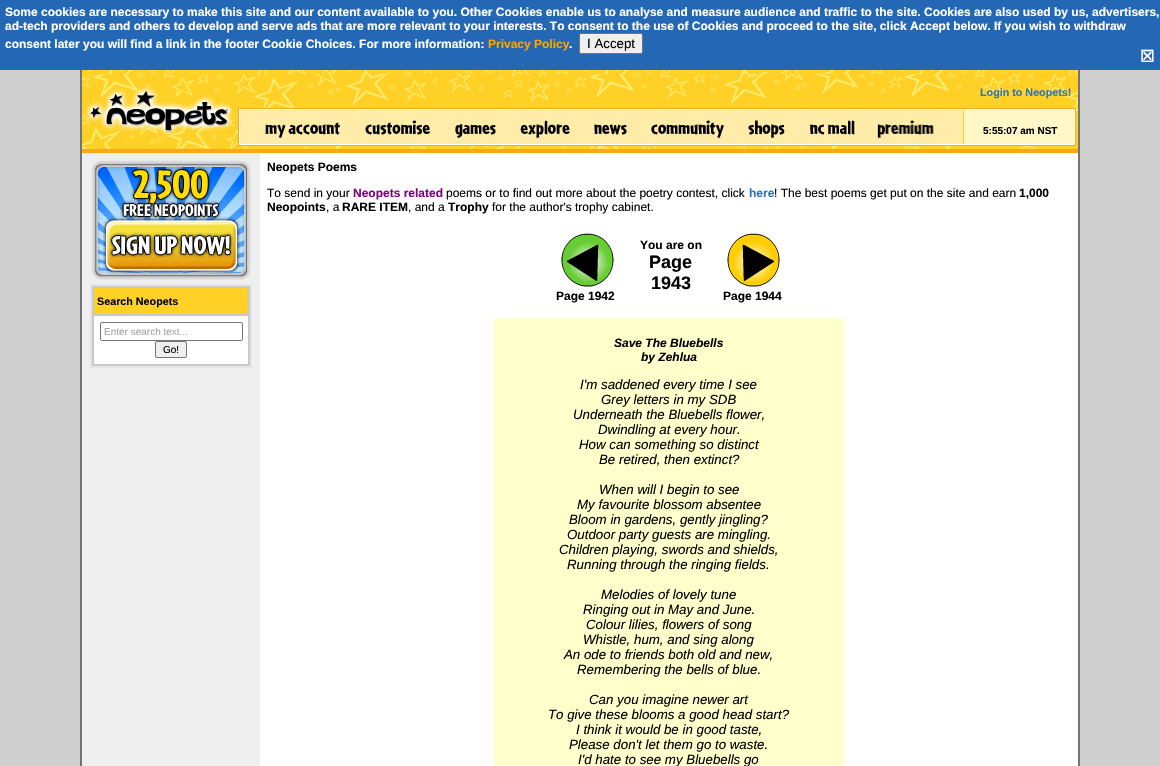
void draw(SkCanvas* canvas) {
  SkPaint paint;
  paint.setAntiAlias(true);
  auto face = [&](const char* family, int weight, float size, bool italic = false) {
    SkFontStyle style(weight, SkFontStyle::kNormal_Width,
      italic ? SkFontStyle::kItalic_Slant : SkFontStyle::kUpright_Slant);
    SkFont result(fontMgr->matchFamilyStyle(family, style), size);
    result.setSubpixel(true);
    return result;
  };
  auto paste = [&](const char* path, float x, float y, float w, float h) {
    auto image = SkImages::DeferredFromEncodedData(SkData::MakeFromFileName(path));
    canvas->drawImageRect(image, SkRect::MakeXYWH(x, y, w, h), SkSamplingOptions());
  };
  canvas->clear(0xffcfcfcf);
  paint.setColor(0xff2367b5);
  canvas->drawRect(SkRect::MakeXYWH(0, 0, 1160, 70), paint);
  paint.setColor(0xffefefef);
  canvas->drawRoundRect(SkRect::MakeXYWH(579.5f, 33.5f, 63, 20), 1.5f, 1.5f, paint);
  paint.setStroke(true);
  paint.setStrokeWidth(1);
  paint.setColor(0xff767676);
  canvas->drawRoundRect(SkRect::MakeXYWH(579.5f, 33.5f, 63, 20), 1.5f, 1.5f, paint);
  paint.setStroke(false);
  {
    const struct { float x, y, w, h; SkColor color; } items[] = {
      {260, 153, 818, 613, 0xffffffff},
      {1078, 70, 2, 696, 0xff747474},
      {80, 70, 2, 696, 0xff747474},
    };
    for (auto [x, y, w, h, color] : items) {
      paint.setColor(color);
      canvas->drawRect(SkRect::MakeXYWH(x, y, w, h), paint);
    }
  }
  paste("img/1.png", 82, 70, 996, 4);
  paste("img/2.png", 82, 74, 996, 77);
  paint.setColor(0xfffaa819);
  canvas->drawRect(SkRect::MakeXYWH(82, 151, 996, 2), paint);
  paste("img/3.png", 265, 122, 75, 16);
  paste("img/4.png", 365, 120, 65, 15);
  paste("img/5.png", 455, 124, 41, 14);
  paste("img/6.png", 520, 120, 50, 18);
  paste("img/7.png", 594, 124, 33, 11);
  paste("img/8.png", 651, 120, 73, 18);
  paste("img/9.png", 748, 120, 37, 18);
  paste("img/10.png", 810, 120, 45, 15);
  paste("img/11.png", 877, 120, 57, 18);
  paint.setColor(0xffefefef);
  canvas->drawRect(SkRect::MakeXYWH(82, 153, 178, 613), paint);
  paste("img/12.png", 91, 160, 160, 120);
  paint.setStroke(true);
  paint.setStrokeWidth(2);
  paint.setColor(0xffe4e4e4);
  canvas->drawRect(SkRect::MakeXYWH(91, 285, 160, 82), paint);
  paint.setColor(0xffc9c9c9);
  canvas->drawRect(SkRect::MakeXYWH(93, 287, 156, 78), paint);
  paint.setStroke(false);
  {
    const struct { float x, y, w, h; SkColor color; } items[] = {
      {94, 288, 154, 26, 0xffffd026},
      {94, 314, 154, 2, 0xffc9c9c9},
      {94, 316, 154, 48, 0xffffffff},
    };
    for (auto [x, y, w, h, color] : items) {
      paint.setColor(color);
      canvas->drawRect(SkRect::MakeXYWH(x, y, w, h), paint);
    }
  }
  paint.setStroke(true);
  paint.setStrokeWidth(1);
  paint.setColor(0xff767676);
  canvas->drawRoundRect(SkRect::MakeXYWH(100.5f, 322.5f, 142, 18), 1.5f, 1.5f, paint);
  paint.setStroke(false);
  paint.setColor(0xffefefef);
  canvas->drawRoundRect(SkRect::MakeXYWH(155.5f, 341.5f, 31, 16), 1.5f, 1.5f, paint);
  paint.setStroke(true);
  paint.setColor(0xff767676);
  canvas->drawRoundRect(SkRect::MakeXYWH(155.5f, 341.5f, 31, 16), 1.5f, 1.5f, paint);
  paste("img/13.png", 561, 233, 54, 55);
  paste("img/14.png", 727, 233, 54, 55);
  paint.setStroke(false);
  paint.setColor(0xffffffcc);
  canvas->drawRect(SkRect::MakeXYWH(494, 318, 350, 448), paint);
  auto f0 = face("Liberation Sans", 700, 12);
  paint.setColor(0xffffffff);
  {
    const struct { const char* s; float x, y; } items[] = {
      {"Some cookies are necessary to make this site and our content available to you. Other Cookies enable us to analyse and measure audience and traffic to the site. Cookies are also used by us, advertisers,", 5, 16},
      {"ad-tech providers and others to develop and serve ads that are more relevant to your interests. To consent to the use of Cookies and proceed to the site, click Accept below. If you wish to withdraw", 5, 30},
      {"consent later you will find a link in the footer Cookie Choices. For more information:", 5, 48},
    };
    for (auto [s, x, y] : items) {
      canvas->drawString(s, x, y, f0, paint);
    }
  }
  paint.setColor(0xffffa500);
  canvas->drawString("Privacy Policy", 488, 48, f0, paint);
  paint.setColor(0xffffffff);
  canvas->drawString(".", 569, 48, f0, paint);
  auto f1 = face("Liberation Sans", 400, 13.3f);
  paint.setColor(0xff000000);
  canvas->drawString("I Accept", 587, 48, f1, paint);
  auto f2 = face("DejaVu Sans", 700, 16);
  paint.setColor(0xffffffff);
  canvas->drawString("☒", 1140, 62, f2, paint);
  auto f3 = face("Liberation Sans", 700, 10.75f);
  paint.setColor(0xff2e72c0);
  canvas->drawString("Login to Neopets!", 980, 96, f3, paint);
  auto f4 = face("Liberation Sans", 700, 10);
  paint.setColor(0xff000000);
  canvas->drawString("5:55:07 am NST", 983, 134, f4, paint);
  canvas->drawString("Search Neopets", 97, 305, f3, paint);
  auto f5 = face("Liberation Sans", 400, 10);
  paint.setColor(0xffa5a5a5);
  canvas->drawString("Enter search text...", 104, 335, f5, paint);
  paint.setColor(0xff000000);
  canvas->drawString("Go!", 163, 353, f5, paint);
  canvas->drawString("Neopets Poems", 267, 171, f0, paint);
  auto f6 = face("Liberation Sans", 400, 12);
  canvas->drawString("To send in your", 267, 197, f6, paint);
  paint.setColor(0xff800080);
  canvas->drawString("Neopets related", 353, 197, f0, paint);
  paint.setColor(0xff000000);
  canvas->drawString("poems or to find out more about the poetry contest, click", 446, 197, f6, paint);
  paint.setColor(0xff2e72c0);
  canvas->drawString("here", 749, 197, f0, paint);
  paint.setColor(0xff000000);
  canvas->drawString("! The best poems get put on the site and earn", 774, 197, f6, paint);
  canvas->drawString("1,000", 1019, 197, f0, paint);
  canvas->drawString("Neopoints", 267, 211, f0, paint);
  canvas->drawString(", a", 326, 211, f6, paint);
  canvas->drawString("RARE ITEM", 342, 211, f0, paint);
  canvas->drawString(", and a", 408, 211, f6, paint);
  canvas->drawString("Trophy", 448, 211, f0, paint);
  canvas->drawString("for the author's trophy cabinet.", 492, 211, f6, paint);
  canvas->drawString("You are on", 640, 249, f0, paint);
  auto f7 = face("Liberation Sans", 700, 18);
  canvas->drawString("Page", 649, 268, f7, paint);
  canvas->drawString("1943", 651, 289, f7, paint);
  canvas->drawString("Page 1942", 556, 300, f0, paint);
  canvas->drawString("Page 1944", 723, 300, f0, paint);
  auto f8 = face("Liberation Sans", 700, 12, true);
  canvas->drawString("Save The Bluebells", 614, 347, f8, paint);
  canvas->drawString("by Zehlua", 641, 361, f8, paint);
  auto f9 = face("Liberation Sans", 400, 13.3f, true);
  {
    const struct { const char* s; float x, y; } items[] = {
      {"I'm saddened every time I see", 580, 389},
      {"Grey letters in my SDB", 601, 404},
      {"Underneath the Bluebells flower,", 573, 419},
      {"Dwindling at every hour.", 598, 434},
      {"How can something so distinct", 579, 449},
      {"Be retired, then extinct?", 599, 464},
      {"When will I begin to see", 599, 494},
      {"My favourite blossom absentee", 577, 509},
      {"Bloom in gardens, gently jingling?", 569, 524},
      {"Outdoor party guests are mingling.", 567, 539},
      {"Children playing, swords and shields,", 559, 554},
      {"Running through the ringing fields.", 567, 569},
      {"Melodies of lovely tune", 601, 599},
      {"Ringing out in May and June.", 583, 614},
      {"Colour lilies, flowers of song", 586, 629},
      {"Whistle, hum, and sing along", 583, 644},
      {"An ode to friends both old and new,", 564, 659},
      {"Remembering the bells of blue.", 577, 674},
      {"Can you imagine newer art", 589, 704},
      {"To give these blooms a good head start?", 548, 719},
      {"I think it would be in good taste,", 576, 734},
      {"Please don't let them go to waste.", 569, 749},
      {"I'd hate to see my Bluebells go", 578, 764},
    };
    for (auto [s, x, y] : items) {
      canvas->drawString(s, x, y, f9, paint);
    }
  }
}
